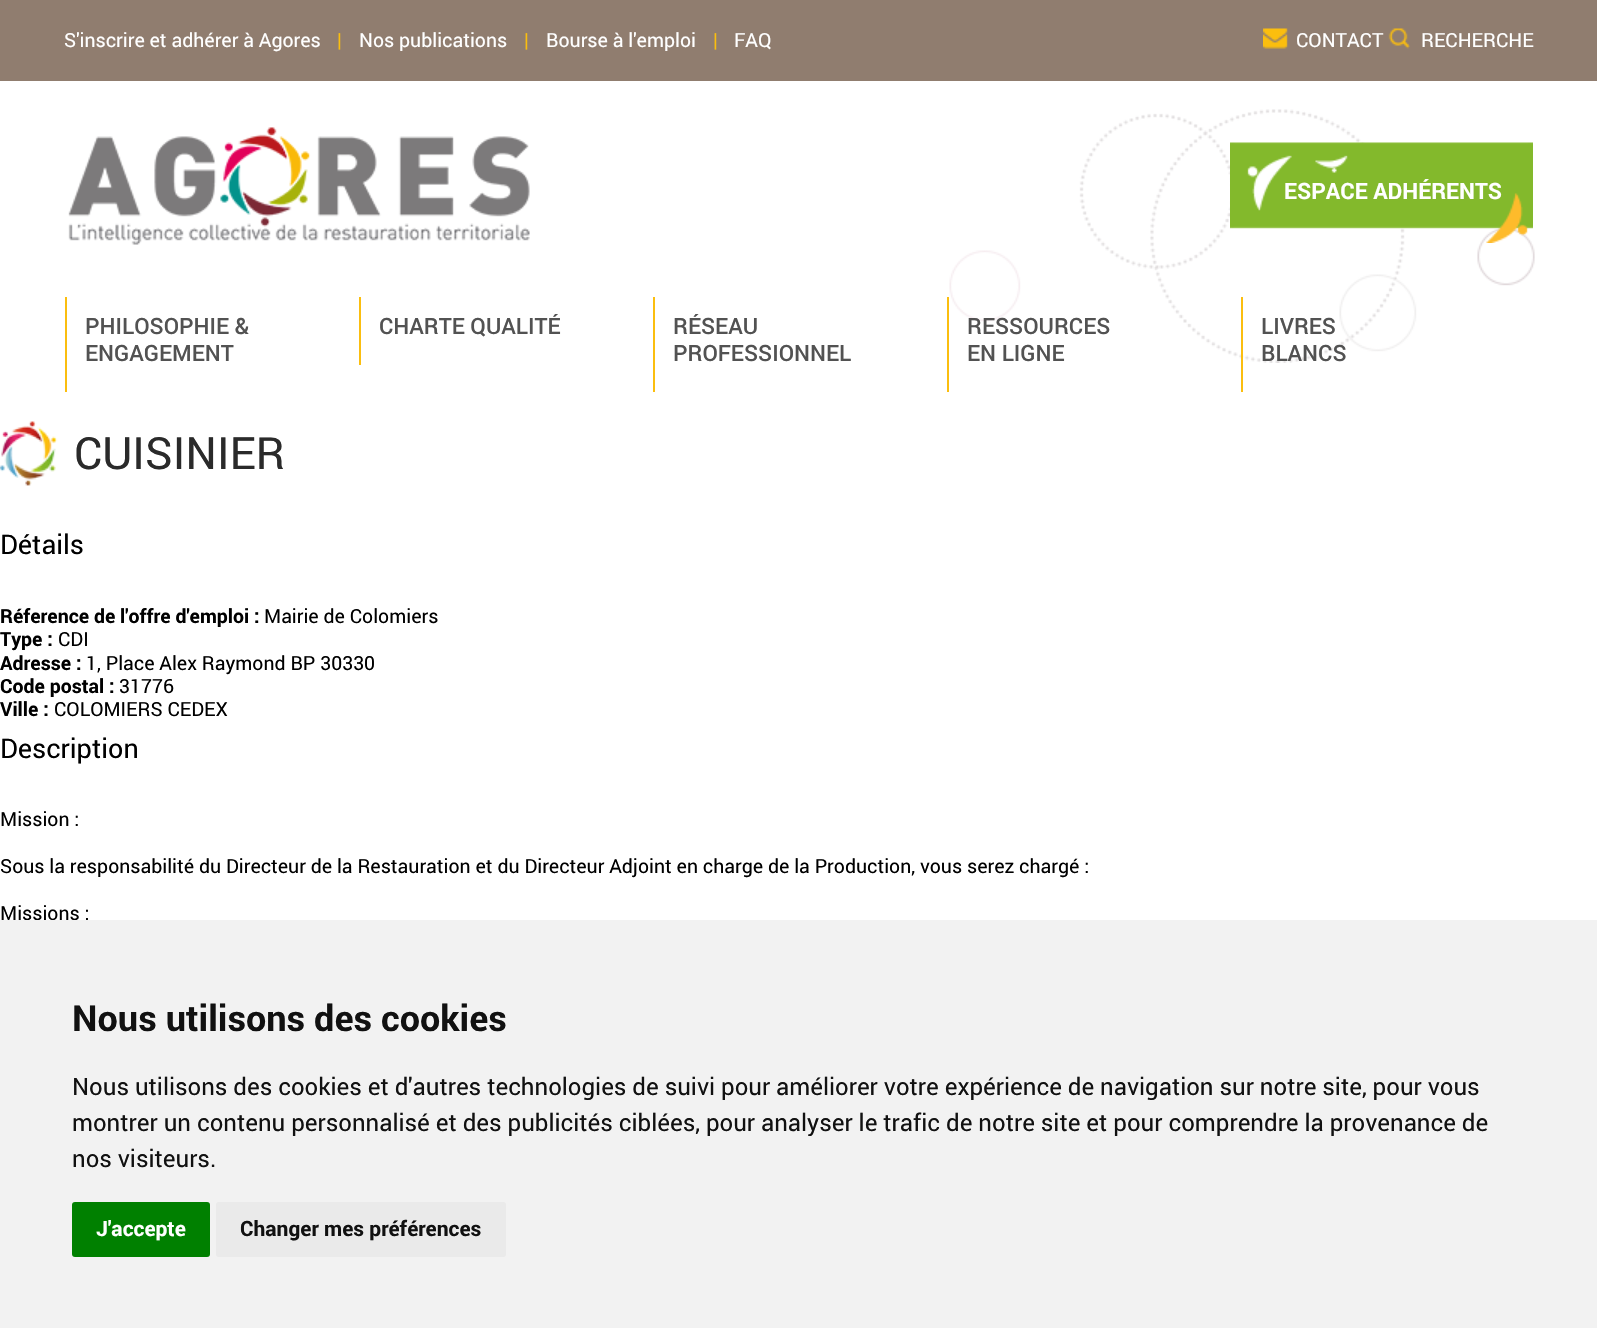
void draw(SkCanvas* canvas) {
  SkPaint paint;
  paint.setAntiAlias(true);
  auto face = [&](const char* family, int weight, float size, bool italic = false) {
    SkFontStyle style(weight, SkFontStyle::kNormal_Width,
      italic ? SkFontStyle::kItalic_Slant : SkFontStyle::kUpright_Slant);
    SkFont result(fontMgr->matchFamilyStyle(family, style), size);
    result.setSubpixel(true);
    return result;
  };
  auto paste = [&](const char* path, float x, float y, float w, float h) {
    auto image = SkImages::DeferredFromEncodedData(SkData::MakeFromFileName(path));
    canvas->drawImageRect(image, SkRect::MakeXYWH(x, y, w, h), SkSamplingOptions());
  };
  canvas->clear(0xffffffff);
  paint.setColor(0xff907d6f);
  canvas->drawRect(SkRect::MakeXYWH(0, 0, 1597, 81), paint);
  paste("img/1.png", 1263, 28, 25, 21);
  paste("img/2.png", 1388, 28, 22, 21);
  paste("img/3.png", 949, 109, 586, 254);
  paste("img/4.png", 68, 127, 462, 118);
  paste("img/5.png", 1230, 142, 303, 101);
  {
    const struct { float x, y, w, h; SkColor color; } items[] = {
      {65, 297, 2, 95, 0xfffbbe0f},
      {359, 297, 2, 68, 0xfffbbe0f},
      {653, 297, 2, 95, 0xfffbbe0f},
      {947, 297, 2, 95, 0xfffbbe0f},
      {1241, 297, 2, 95, 0xfffbbe0f},
    };
    for (auto [x, y, w, h, color] : items) {
      paint.setColor(color);
      canvas->drawRect(SkRect::MakeXYWH(x, y, w, h), paint);
    }
  }
  paste("img/6.png", 0, 421, 58, 65);
  auto f0 = face("Roboto", 400, 19.5f);
  paint.setColor(0xffffffff);
  canvas->drawString("S'inscrire et adhérer à Agores", 64, 47, f0, paint);
  paint.setColor(0xfffbbe0e);
  canvas->drawString("|", 337, 47, f0, paint);
  paint.setColor(0xffffffff);
  canvas->drawString("Nos publications", 359, 47, f0, paint);
  paint.setColor(0xfffbbe0e);
  canvas->drawString("|", 524, 47, f0, paint);
  paint.setColor(0xffffffff);
  canvas->drawString("Bourse à l'emploi", 546, 47, f0, paint);
  paint.setColor(0xfffbbe0e);
  canvas->drawString("|", 713, 47, f0, paint);
  paint.setColor(0xffffffff);
  {
    const struct { const char* s; float x, y; } items[] = {
      {"FAQ", 734, 47},
      {"CONTACT", 1296, 47},
      {"RECHERCHE", 1421, 47},
    };
    for (auto [s, x, y] : items) {
      canvas->drawString(s, x, y, f0, paint);
    }
  }
  auto f1 = face("Roboto", 700, 22.5f);
  canvas->drawString("ESPACE ADHÉRENTS", 1284, 199, f1, paint);
  auto f2 = face("Roboto", 500, 22.5f);
  paint.setColor(0xff525252);
  {
    const struct { const char* s; float x, y; } items[] = {
      {"PHILOSOPHIE &", 85, 334},
      {"ENGAGEMENT", 85, 361},
      {"CHARTE QUALITÉ", 379, 334},
      {"RÉSEAU", 673, 334},
      {"PROFESSIONNEL", 673, 361},
      {"RESSOURCES", 967, 334},
      {"EN LIGNE", 967, 361},
      {"LIVRES", 1261, 334},
      {"BLANCS", 1261, 361},
    };
    for (auto [s, x, y] : items) {
      canvas->drawString(s, x, y, f2, paint);
    }
  }
  auto f3 = face("Roboto", 400, 44.5f);
  paint.setColor(0xff2a2a2a);
  canvas->drawString("CUISINIER", 74, 469, f3, paint);
  auto f4 = face("Roboto", 400, 27);
  paint.setColor(0xff000000);
  canvas->drawString("Détails", 0, 554, f4, paint);
  auto f5 = face("Roboto", 700, 19.5f);
  canvas->drawString("Réference de l'offre d'emploi :", 0, 623, f5, paint);
  canvas->drawString("Mairie de Colomiers", 264, 623, f0, paint);
  canvas->drawString("Type :", 0, 646, f5, paint);
  canvas->drawString("CDI", 58, 646, f0, paint);
  canvas->drawString("Adresse :", 0, 670, f5, paint);
  canvas->drawString("1, Place Alex Raymond BP 30330", 86, 670, f0, paint);
  canvas->drawString("Code postal :", 0, 693, f5, paint);
  canvas->drawString("31776", 119, 693, f0, paint);
  canvas->drawString("Ville :", 0, 716, f5, paint);
  canvas->drawString("COLOMIERS CEDEX", 54, 716, f0, paint);
  canvas->drawString("Description", 0, 758, f4, paint);
  {
    const struct { const char* s; float x, y; } items[] = {
      {"Mission :", 0, 826},
      {"Sous la responsabilité du Directeur de la Restauration et du Directeur Adjoint en charge de la Production, vous serez chargé :", 0, 873},
      {"Missions :", 0, 920},
    };
    for (auto [s, x, y] : items) {
      canvas->drawString(s, x, y, f0, paint);
    }
  }
  paint.setColor(0xfff2f2f2);
  canvas->drawRect(SkRect::MakeXYWH(0, 920, 1597, 408), paint);
  auto f6 = face("Roboto", 700, 36);
  paint.setColor(0xff111111);
  canvas->drawString("Nous utilisons des cookies", 72, 1031, f6, paint);
  auto f7 = face("Roboto", 400, 24);
  {
    const struct { const char* s; float x, y; } items[] = {
      {"Nous utilisons des cookies et d'autres technologies de suivi pour améliorer votre expérience de navigation sur notre site, pour vous", 72, 1095},
      {"montrer un contenu personnalisé et des publicités ciblées, pour analyser le trafic de notre site et pour comprendre la provenance de", 72, 1131},
      {"nos visiteurs.", 72, 1167},
    };
    for (auto [s, x, y] : items) {
      canvas->drawString(s, x, y, f7, paint);
    }
  }
  paint.setColor(0xff008000);
  canvas->drawRoundRect(SkRect::MakeXYWH(72, 1202, 138, 55), 3, 3, paint);
  auto f8 = face("Roboto", 700, 21);
  paint.setColor(0xffffffff);
  canvas->drawString("J'accepte", 96, 1236, f8, paint);
  paint.setColor(0xffeaeaea);
  canvas->drawRoundRect(SkRect::MakeXYWH(216, 1202, 290, 55), 3, 3, paint);
  paint.setColor(0xff111111);
  canvas->drawString("Changer mes préférences", 240, 1236, f8, paint);
}
